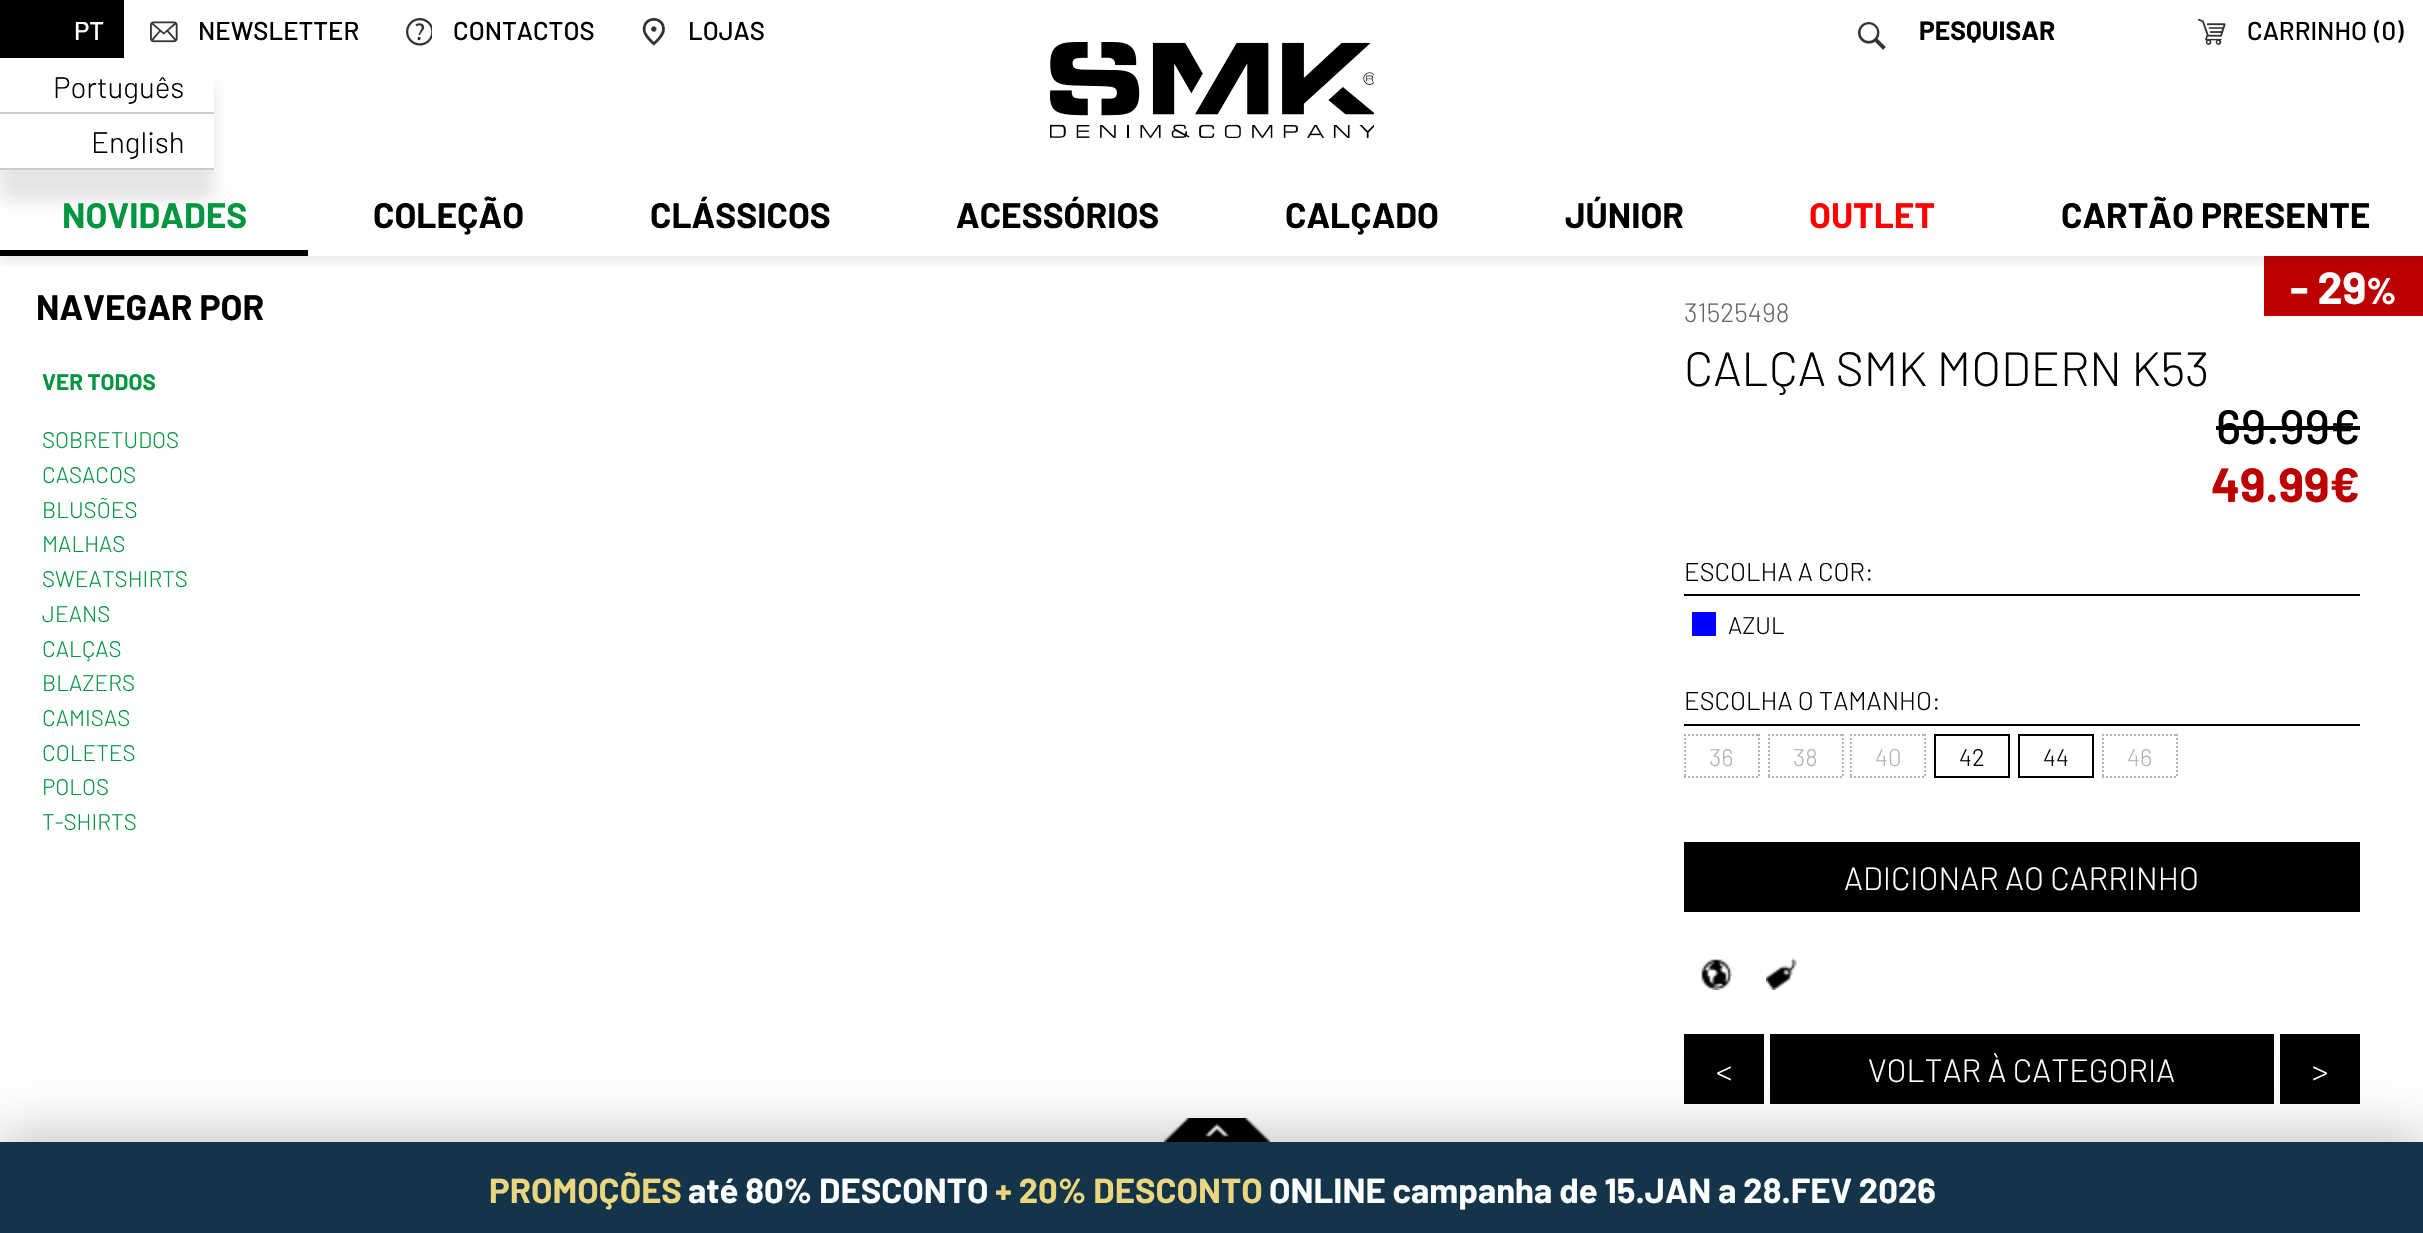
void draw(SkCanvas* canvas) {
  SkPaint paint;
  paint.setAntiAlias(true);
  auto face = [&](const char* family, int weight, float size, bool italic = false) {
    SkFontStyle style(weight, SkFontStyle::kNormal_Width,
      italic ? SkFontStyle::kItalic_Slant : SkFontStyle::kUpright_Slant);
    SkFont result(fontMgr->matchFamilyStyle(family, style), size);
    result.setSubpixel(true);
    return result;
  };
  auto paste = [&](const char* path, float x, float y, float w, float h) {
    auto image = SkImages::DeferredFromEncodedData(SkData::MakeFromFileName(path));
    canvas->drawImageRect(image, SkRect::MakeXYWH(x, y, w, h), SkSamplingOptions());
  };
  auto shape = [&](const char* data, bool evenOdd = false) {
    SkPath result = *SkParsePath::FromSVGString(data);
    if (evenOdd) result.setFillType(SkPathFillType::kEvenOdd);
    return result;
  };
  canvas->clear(0xffffffff);
  paint.setColor(0xffbd0000);
  canvas->drawRect(SkRect::MakeXYWH(2264, 256, 159, 60), paint);
  canvas->save();
  canvas->clipRect(SkRect::MakeXYWH(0, 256, 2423, 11));
  paint.setColor(0x1a000000);
  paint.setMaskFilter(SkMaskFilter::MakeBlur(kNormal_SkBlurStyle, 8));
  canvas->drawRect(SkRect::MakeXYWH(0, 4, 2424, 256), paint);
  paint.setMaskFilter(nullptr);
  canvas->restore();
  paint.setColor(0xff000000);
  canvas->drawRect(SkRect::MakeXYWH(0, 0, 124, 58), paint);
  paint.setColor(0x1a000000);
  paint.setMaskFilter(SkMaskFilter::MakeBlur(kNormal_SkBlurStyle, 7.5f));
  canvas->drawRect(SkRect::MakeXYWH(0, 88, 214, 112), paint);
  paint.setMaskFilter(nullptr);
  {
    const struct { float x, y, w, h; SkColor color; } items[] = {
      {0, 78, 214, 90, 0xffffffff},
      {0, 112, 214, 2, 0xffcccccc},
      {0, 168, 214, 2, 0xffcccccc},
    };
    for (auto [x, y, w, h, color] : items) {
      paint.setColor(color);
      canvas->drawRect(SkRect::MakeXYWH(x, y, w, h), paint);
    }
  }
  paste("img/1.png", 150, 21, 28, 22);
  paste("img/2.png", 406, 18, 26, 28);
  paste("img/3.png", 642, 18, 23, 28);
  paste("img/4.png", 1858, 22, 28, 28);
  paste("img/5.png", 2198, 18, 28, 27);
  paste("img/6.png", 1050, 42, 324, 96);
  {
    const struct { float x, y, w, h; SkColor color; } items[] = {
      {0, 250, 308, 6, 0xff000000},
      {2216, 426, 144, 4, 0xff000000},
      {1684, 594, 676, 2, 0xff000000},
      {1692, 612, 24, 24, 0xff0000ff},
      {1684, 724, 676, 2, 0xff000000},
    };
    for (auto [x, y, w, h, color] : items) {
      paint.setColor(color);
      canvas->drawRect(SkRect::MakeXYWH(x, y, w, h), paint);
    }
  }
  paint.setStroke(true);
  paint.setStrokeWidth(2);
  paint.setColor(0xffb3b3b3);
  paint.setPathEffect(SkDashPathEffect::Make({{2, 2}}, 0));
  canvas->drawPath(shape("M1684 735H1760"), paint);
  paint.setPathEffect(nullptr);
  paint.setPathEffect(SkDashPathEffect::Make({{2, 2}}, 0));
  canvas->drawPath(shape("M1759 734V778"), paint);
  paint.setPathEffect(nullptr);
  paint.setPathEffect(SkDashPathEffect::Make({{2, 2}}, 0));
  canvas->drawPath(shape("M1684 777H1760"), paint);
  paint.setPathEffect(nullptr);
  paint.setPathEffect(SkDashPathEffect::Make({{2, 2}}, 0));
  canvas->drawPath(shape("M1685 734V778"), paint);
  paint.setPathEffect(nullptr);
  paint.setPathEffect(SkDashPathEffect::Make({{2, 2}}, 0));
  canvas->drawPath(shape("M1768 735H1844"), paint);
  paint.setPathEffect(nullptr);
  paint.setPathEffect(SkDashPathEffect::Make({{2, 2}}, 0));
  canvas->drawPath(shape("M1843 734V778"), paint);
  paint.setPathEffect(nullptr);
  paint.setPathEffect(SkDashPathEffect::Make({{2, 2}}, 0));
  canvas->drawPath(shape("M1768 777H1844"), paint);
  paint.setPathEffect(nullptr);
  paint.setPathEffect(SkDashPathEffect::Make({{2, 2}}, 0));
  canvas->drawPath(shape("M1769 734V778"), paint);
  paint.setPathEffect(nullptr);
  paint.setPathEffect(SkDashPathEffect::Make({{2, 2}}, 0));
  canvas->drawPath(shape("M1850 735H1926"), paint);
  paint.setPathEffect(nullptr);
  paint.setPathEffect(SkDashPathEffect::Make({{2, 2}}, 0));
  canvas->drawPath(shape("M1925 734V778"), paint);
  paint.setPathEffect(nullptr);
  paint.setPathEffect(SkDashPathEffect::Make({{2, 2}}, 0));
  canvas->drawPath(shape("M1850 777H1926"), paint);
  paint.setPathEffect(nullptr);
  paint.setPathEffect(SkDashPathEffect::Make({{2, 2}}, 0));
  canvas->drawPath(shape("M1851 734V778"), paint);
  paint.setPathEffect(nullptr);
  paint.setColor(0xff000000);
  canvas->drawRect(SkRect::MakeXYWH(1935, 735, 74, 42), paint);
  canvas->drawRect(SkRect::MakeXYWH(2019, 735, 74, 42), paint);
  paint.setColor(0xffb3b3b3);
  paint.setPathEffect(SkDashPathEffect::Make({{2, 2}}, 0));
  canvas->drawPath(shape("M2102 735H2178"), paint);
  paint.setPathEffect(nullptr);
  paint.setPathEffect(SkDashPathEffect::Make({{2, 2}}, 0));
  canvas->drawPath(shape("M2177 734V778"), paint);
  paint.setPathEffect(nullptr);
  paint.setPathEffect(SkDashPathEffect::Make({{2, 2}}, 0));
  canvas->drawPath(shape("M2102 777H2178"), paint);
  paint.setPathEffect(nullptr);
  paint.setPathEffect(SkDashPathEffect::Make({{2, 2}}, 0));
  canvas->drawPath(shape("M2103 734V778"), paint);
  paint.setPathEffect(nullptr);
  paint.setStroke(false);
  paint.setColor(0xff000000);
  canvas->drawRect(SkRect::MakeXYWH(1684, 842, 676, 70), paint);
  paste("img/7.png", 1701, 959, 31, 31);
  paste("img/8.png", 1766, 958, 31, 32);
  {
    const struct { float x, y, w, h; SkColor color; } items[] = {
      {1684, 1034, 676, 70, 0xff000000},
      {1764, 1034, 6, 70, 0xffffffff},
      {2274, 1034, 6, 70, 0xffffffff},
    };
    for (auto [x, y, w, h, color] : items) {
      paint.setColor(color);
      canvas->drawRect(SkRect::MakeXYWH(x, y, w, h), paint);
    }
  }
  paint.setColor(0x4d000000);
  paint.setMaskFilter(SkMaskFilter::MakeBlur(kNormal_SkBlurStyle, 29));
  canvas->drawRect(SkRect::MakeXYWH(0, 1142, 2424, 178), paint);
  paint.setMaskFilter(nullptr);
  paste("img/9.png", 1164, 1118, 106, 24);
  paint.setColor(0xff143449);
  canvas->drawRect(SkRect::MakeXYWH(0, 1142, 2423, 91), paint);
  auto f0 = face("Barlow", 500, 25.75f);
  paint.setColor(0xffffffff);
  canvas->drawString("PT", 74, 40, f0, paint);
  auto f1 = face("Barlow", 300, 29.5f);
  paint.setColor(0xff000000);
  canvas->drawString("Português", 53, 98, f1, paint);
  canvas->drawString("English", 91, 153, f1, paint);
  {
    const struct { const char* s; float x, y; } items[] = {
      {"NEWSLETTER", 198, 40},
      {"CONTACTOS", 453, 40},
      {"LOJAS", 688, 40},
    };
    for (auto [s, x, y] : items) {
      canvas->drawString(s, x, y, f0, paint);
    }
  }
  auto f2 = face("Barlow", 700, 26.5f);
  canvas->drawString("PESQUISAR", 1919, 40, f2, paint);
  canvas->drawString("CARRINHO", 2247, 40, f0, paint);
  canvas->drawString("(0)", 2374, 40, f0, paint);
  auto f3 = face("Barlow", 700, 35.25f);
  paint.setColor(0xff00953f);
  canvas->drawString("NOVIDADES", 62, 228, f3, paint);
  paint.setColor(0xff000000);
  {
    const struct { const char* s; float x, y; } items[] = {
      {"COLEÇÃO", 373, 228},
      {"CLÁSSICOS", 650, 228},
      {"ACESSÓRIOS", 956, 228},
      {"CALÇADO", 1285, 228},
      {"JÚNIOR", 1565, 228},
    };
    for (auto [s, x, y] : items) {
      canvas->drawString(s, x, y, f3, paint);
    }
  }
  paint.setColor(0xffff0000);
  canvas->drawString("OUTLET", 1809, 228, f3, paint);
  paint.setColor(0xff000000);
  canvas->drawString("CARTÃO PRESENTE", 2061, 228, f3, paint);
  canvas->drawString("NAVEGAR POR", 36, 320, f3, paint);
  auto f4 = face("Barlow", 700, 22.5f);
  paint.setColor(0xff00953f);
  canvas->drawString("VER TODOS", 42, 390, f4, paint);
  auto f5 = face("Barlow", 300, 22.5f);
  {
    const struct { const char* s; float x, y; } items[] = {
      {"SOBRETUDOS", 42, 448},
      {"CASACOS", 42, 483},
      {"BLUSÕES", 42, 518},
      {"MALHAS", 42, 552},
      {"SWEATSHIRTS", 42, 587},
      {"JEANS", 42, 622},
      {"CALÇAS", 42, 657},
      {"BLAZERS", 42, 691},
      {"CAMISAS", 42, 726},
      {"COLETES", 42, 761},
      {"POLOS", 42, 795},
      {"T-SHIRTS", 42, 830},
    };
    for (auto [s, x, y] : items) {
      canvas->drawString(s, x, y, f5, paint);
    }
  }
  auto f6 = face("Barlow", 700, 45);
  paint.setColor(0xffffffff);
  canvas->drawString("- 29", 2290, 304, f6, paint);
  auto f7 = face("Barlow", 700, 37);
  canvas->drawString("%", 2366, 304, f7, paint);
  auto f8 = face("Barlow", 300, 26.5f);
  paint.setColor(0xff666666);
  canvas->drawString("31525498", 1684, 322, f8, paint);
  auto f9 = face("Barlow", 300, 48);
  paint.setColor(0xff000000);
  canvas->drawString("CALÇA SMK MODERN K53", 1684, 386, f9, paint);
  auto f10 = face("Barlow", 500, 48);
  canvas->drawString("69.99€", 2216, 444, f10, paint);
  auto f11 = face("Barlow", 700, 48);
  paint.setColor(0xffbd0000);
  canvas->drawString("49.99€", 2211, 502, f11, paint);
  auto f12 = face("Barlow", 300, 25.6f);
  paint.setColor(0xff000000);
  canvas->drawString("ESCOLHA A COR:", 1684, 581, f12, paint);
  auto f13 = face("Barlow", 300, 24);
  canvas->drawString("AZUL", 1728, 634, f13, paint);
  canvas->drawString("ESCOLHA O TAMANHO:", 1684, 710, f12, paint);
  paint.setColor(0xffb3b3b3);
  {
    const struct { const char* s; float x, y; } items[] = {
      {"36", 1709, 766},
      {"38", 1793, 766},
      {"40", 1875, 766},
    };
    for (auto [s, x, y] : items) {
      canvas->drawString(s, x, y, f13, paint);
    }
  }
  paint.setColor(0xff000000);
  canvas->drawString("42", 1959, 766, f13, paint);
  canvas->drawString("44", 2043, 766, f13, paint);
  paint.setColor(0xffb3b3b3);
  canvas->drawString("46", 2127, 766, f13, paint);
  auto f14 = face("Barlow", 300, 32);
  paint.setColor(0xffffffff);
  {
    const struct { const char* s; float x, y; } items[] = {
      {"ADICIONAR AO CARRINHO", 1844, 890},
      {"<", 1716, 1082},
      {"VOLTAR À CATEGORIA", 1868, 1082},
      {">", 2312, 1082},
    };
    for (auto [s, x, y] : items) {
      canvas->drawString(s, x, y, f14, paint);
    }
  }
  auto f15 = face("Barlow", 700, 34.6f);
  paint.setColor(0xffead67f);
  canvas->drawString("PROMOÇÕES", 489, 1203, f15, paint);
  paint.setColor(0xffffffff);
  canvas->drawString("até 80% DESCONTO", 688, 1203, f15, paint);
  paint.setColor(0xffead67f);
  canvas->drawString("+ 20% DESCONTO", 995, 1203, f15, paint);
  paint.setColor(0xffffffff);
  canvas->drawString("ONLINE campanha de 15.JAN a 28.FEV 2026", 1269, 1203, f15, paint);
}
